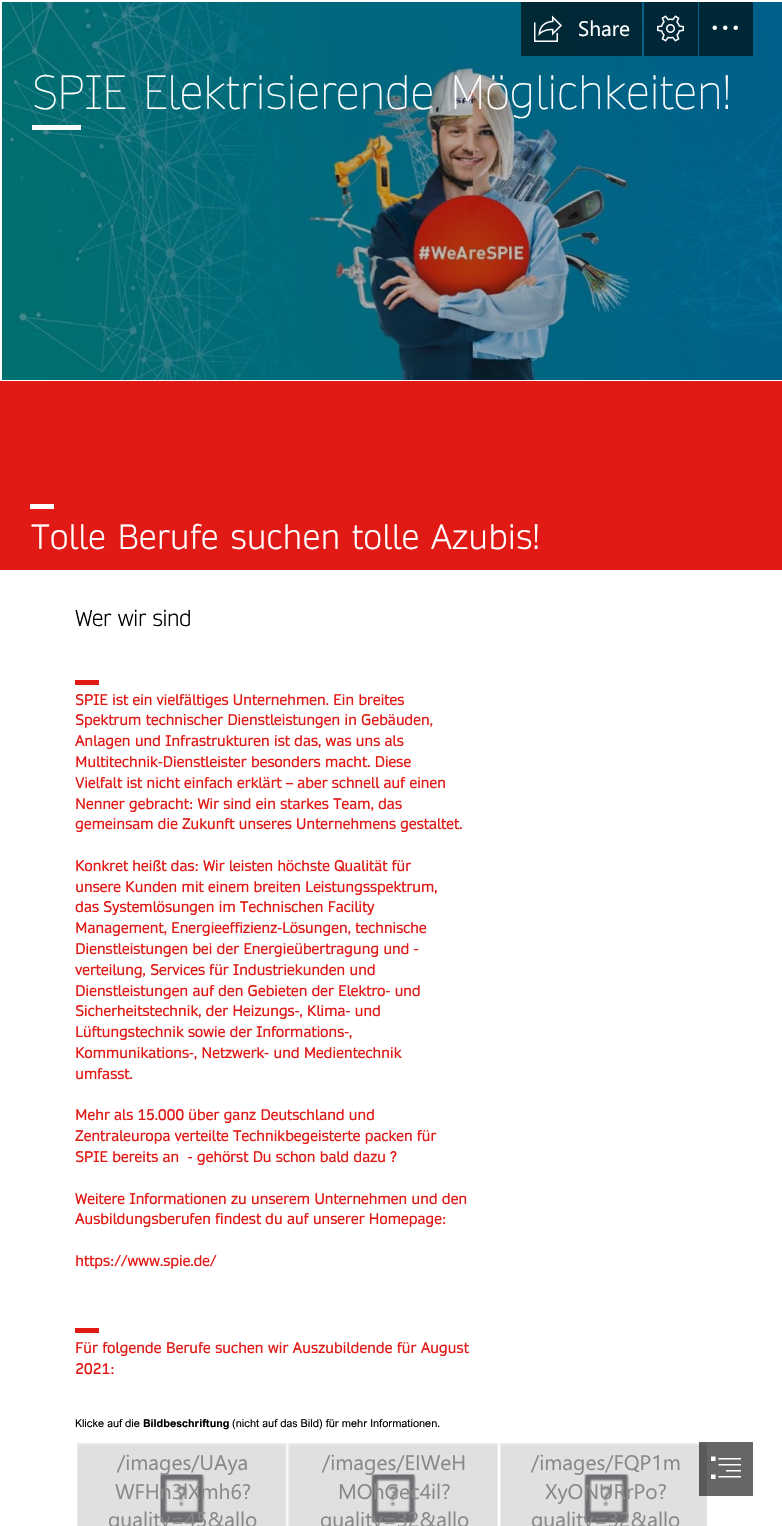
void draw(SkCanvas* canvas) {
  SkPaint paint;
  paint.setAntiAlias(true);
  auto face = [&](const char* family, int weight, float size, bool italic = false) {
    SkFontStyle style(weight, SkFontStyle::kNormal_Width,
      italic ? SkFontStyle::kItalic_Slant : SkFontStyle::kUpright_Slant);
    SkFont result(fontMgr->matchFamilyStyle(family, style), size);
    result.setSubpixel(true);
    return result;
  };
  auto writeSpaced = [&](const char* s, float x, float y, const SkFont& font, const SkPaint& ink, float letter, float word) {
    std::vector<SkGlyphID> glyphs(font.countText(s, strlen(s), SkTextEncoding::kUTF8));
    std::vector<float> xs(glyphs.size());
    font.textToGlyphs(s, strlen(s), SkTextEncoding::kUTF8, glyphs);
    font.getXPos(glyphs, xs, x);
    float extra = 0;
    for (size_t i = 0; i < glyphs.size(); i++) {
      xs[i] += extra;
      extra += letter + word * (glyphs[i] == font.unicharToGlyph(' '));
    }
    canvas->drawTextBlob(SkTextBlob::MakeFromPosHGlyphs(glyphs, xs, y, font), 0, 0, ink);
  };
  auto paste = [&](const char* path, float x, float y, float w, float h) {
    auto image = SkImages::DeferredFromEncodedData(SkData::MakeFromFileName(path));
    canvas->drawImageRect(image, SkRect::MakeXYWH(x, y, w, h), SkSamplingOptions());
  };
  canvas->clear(0xffffffff);
  paste("img/4.png", 2, 2, 780, 378);
  paint.setColor(0x99000000);
  canvas->drawRect(SkRect::MakeXYWH(521, 2, 121, 54), paint);
  paste("img/1.png", 534, 15, 28, 27);
  paint.setColor(0xff002737);
  canvas->drawRect(SkRect::MakeXYWH(644, 2, 54, 54), paint);
  paste("img/2.png", 657, 15, 27, 27);
  canvas->drawRect(SkRect::MakeXYWH(699, 2, 54, 54), paint);
  paste("img/3.png", 712, 25, 26, 5);
  {
    const struct { float x, y, w, h; SkColor color; } items[] = {
      {699, 1442, 54, 54, 0xff666666},
      {32, 125, 49, 5, 0xffffffff},
      {0, 381, 782, 189, 0xffe21a16},
      {30, 504, 24, 5, 0xffffffff},
      {75, 680, 24, 5, 0xffe21a16},
      {75, 1328, 24, 5, 0xffe21a16},
      {77, 1443, 210, 83, 0xffeaeaea},
      {78, 1445, 207, 81, 0xffe0e0e0},
    };
    for (auto [x, y, w, h, color] : items) {
      paint.setColor(color);
      canvas->drawRect(SkRect::MakeXYWH(x, y, w, h), paint);
    }
  }
  paste("img/5.png", 160, 1474, 45, 49);
  paint.setColor(0xffeaeaea);
  canvas->drawRect(SkRect::MakeXYWH(288, 1443, 210, 83), paint);
  paint.setColor(0xffe0e0e0);
  canvas->drawRect(SkRect::MakeXYWH(290, 1445, 207, 81), paint);
  paste("img/6.png", 371, 1474, 45, 49);
  {
    const struct { float x, y, w, h; SkColor color; } items[] = {
      {500, 1443, 199, 83, 0xffeaeaea},
      {699, 1443, 8, 2, 0xff5e5e5e},
      {501, 1445, 206, 81, 0xffe0e0e0},
      {699, 1445, 8, 51, 0xff5a5a5a},
    };
    for (auto [x, y, w, h, color] : items) {
      paint.setColor(color);
      canvas->drawRect(SkRect::MakeXYWH(x, y, w, h), paint);
    }
  }
  paste("img/6.png", 584, 1474, 45, 49);
  paste("img/7.png", 711, 1456, 30, 23);
  auto f0 = face("Segoe UI", 400, 21);
  paint.setColor(0xffffffff);
  canvas->drawString("Share", 578, 36, f0, paint);
  auto f1 = face("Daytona", 100, 45.9f);
  writeSpaced("SPIE Elektrisierende Möglichkeiten!", 32, 109, f1, paint, -0.35f, 0);
  auto f2 = face("Daytona", 300, 33.6f);
  canvas->drawString("Tolle Berufe suchen tolle Azubis!", 31, 549, f2, paint);
  auto f3 = face("Daytona", 300, 22);
  paint.setColor(0xff000000);
  writeSpaced("Wer wir sind", 75, 626, f3, paint, -0.75f, 0);
  auto f4 = face("Daytona", 400, 14.7f);
  paint.setColor(0xffe21a16);
  {
    const struct { const char* s; float x, y; } items[] = {
      {"SPIE ist ein vielfältiges Unternehmen. Ein breites", 75, 705},
      {"Spektrum technischer Dienstleistungen in Gebäuden,", 75, 725},
      {"Anlagen und Infrastrukturen ist das, was uns als", 75, 746},
      {"Multitechnik-Dienstleister besonders macht. Diese", 75, 767},
      {"Vielfalt ist nicht einfach erklärt – aber schnell auf einen", 75, 788},
      {"Nenner gebracht: Wir sind ein starkes Team, das", 75, 809},
      {"gemeinsam die Zukunft unseres Unternehmens gestaltet.", 75, 829},
      {"Konkret heißt das: Wir leisten höchste Qualität für", 75, 871},
      {"unsere Kunden mit einem breiten Leistungsspektrum,", 75, 892},
      {"das Systemlösungen im Technischen Facility", 75, 912},
      {"Management, Energieeffizienz-Lösungen, technische", 75, 933},
      {"Dienstleistungen bei der Energieübertragung und -", 75, 954},
      {"verteilung, Services für Industriekunden und", 75, 975},
      {"Dienstleistungen auf den Gebieten der Elektro- und", 75, 996},
      {"Sicherheitstechnik, der Heizungs-, Klima- und", 75, 1016},
      {"Lüftungstechnik sowie der Informations-,", 75, 1037},
      {"Kommunikations-, Netzwerk- und Medientechnik", 75, 1058},
      {"umfasst.", 75, 1079},
      {"Mehr als 15.000 über ganz Deutschland und", 75, 1120},
      {"Zentraleuropa verteilte Technikbegeisterte packen für", 75, 1141},
      {"SPIE bereits an  - gehörst Du schon bald dazu ?", 75, 1162},
      {"Weitere Informationen zu unserem Unternehmen und den", 75, 1204},
      {"Ausbildungsberufen findest du auf unserer Homepage:", 75, 1224},
      {"https://www.spie.de/", 75, 1266},
    };
    for (auto [s, x, y] : items) {
      writeSpaced(s, x, y, f4, paint, -0.4f, 0);
    }
  }
  writeSpaced("Für folgende Berufe suchen wir Auszubildende für August", 75, 1353, f4, paint, -0.33f, 0);
  writeSpaced("2021:", 75, 1374, f4, paint, -0.33f, 0);
  auto f5 = face("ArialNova", 400, 11);
  paint.setColor(0xff000000);
  canvas->drawString("Klicke auf die", 75, 1427, f5, paint);
  auto f6 = face("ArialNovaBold", 700, 11);
  canvas->drawString("Bildbeschriftung", 143, 1427, f6, paint);
  canvas->drawString("(nicht auf das Bild) für mehr Informationen.", 232, 1427, f5, paint);
  paint.setColor(0xff888888);
  {
    const struct { const char* s; float x, y; } items[] = {
      {"/images/UAya", 117, 1470},
      {"WFHn3lXmh6?", 115, 1499},
      {"quality=45&allo", 108, 1527},
      {"/images/EIWeH", 322, 1470},
      {"MOhGec4il?", 338, 1499},
      {"quality=32&allo", 320, 1527},
      {"/images/FQP1m", 531, 1470},
      {"XyONURrPo?", 545, 1499},
      {"quality=32&allo", 531, 1527},
    };
    for (auto [s, x, y] : items) {
      canvas->drawString(s, x, y, f0, paint);
    }
  }
}
